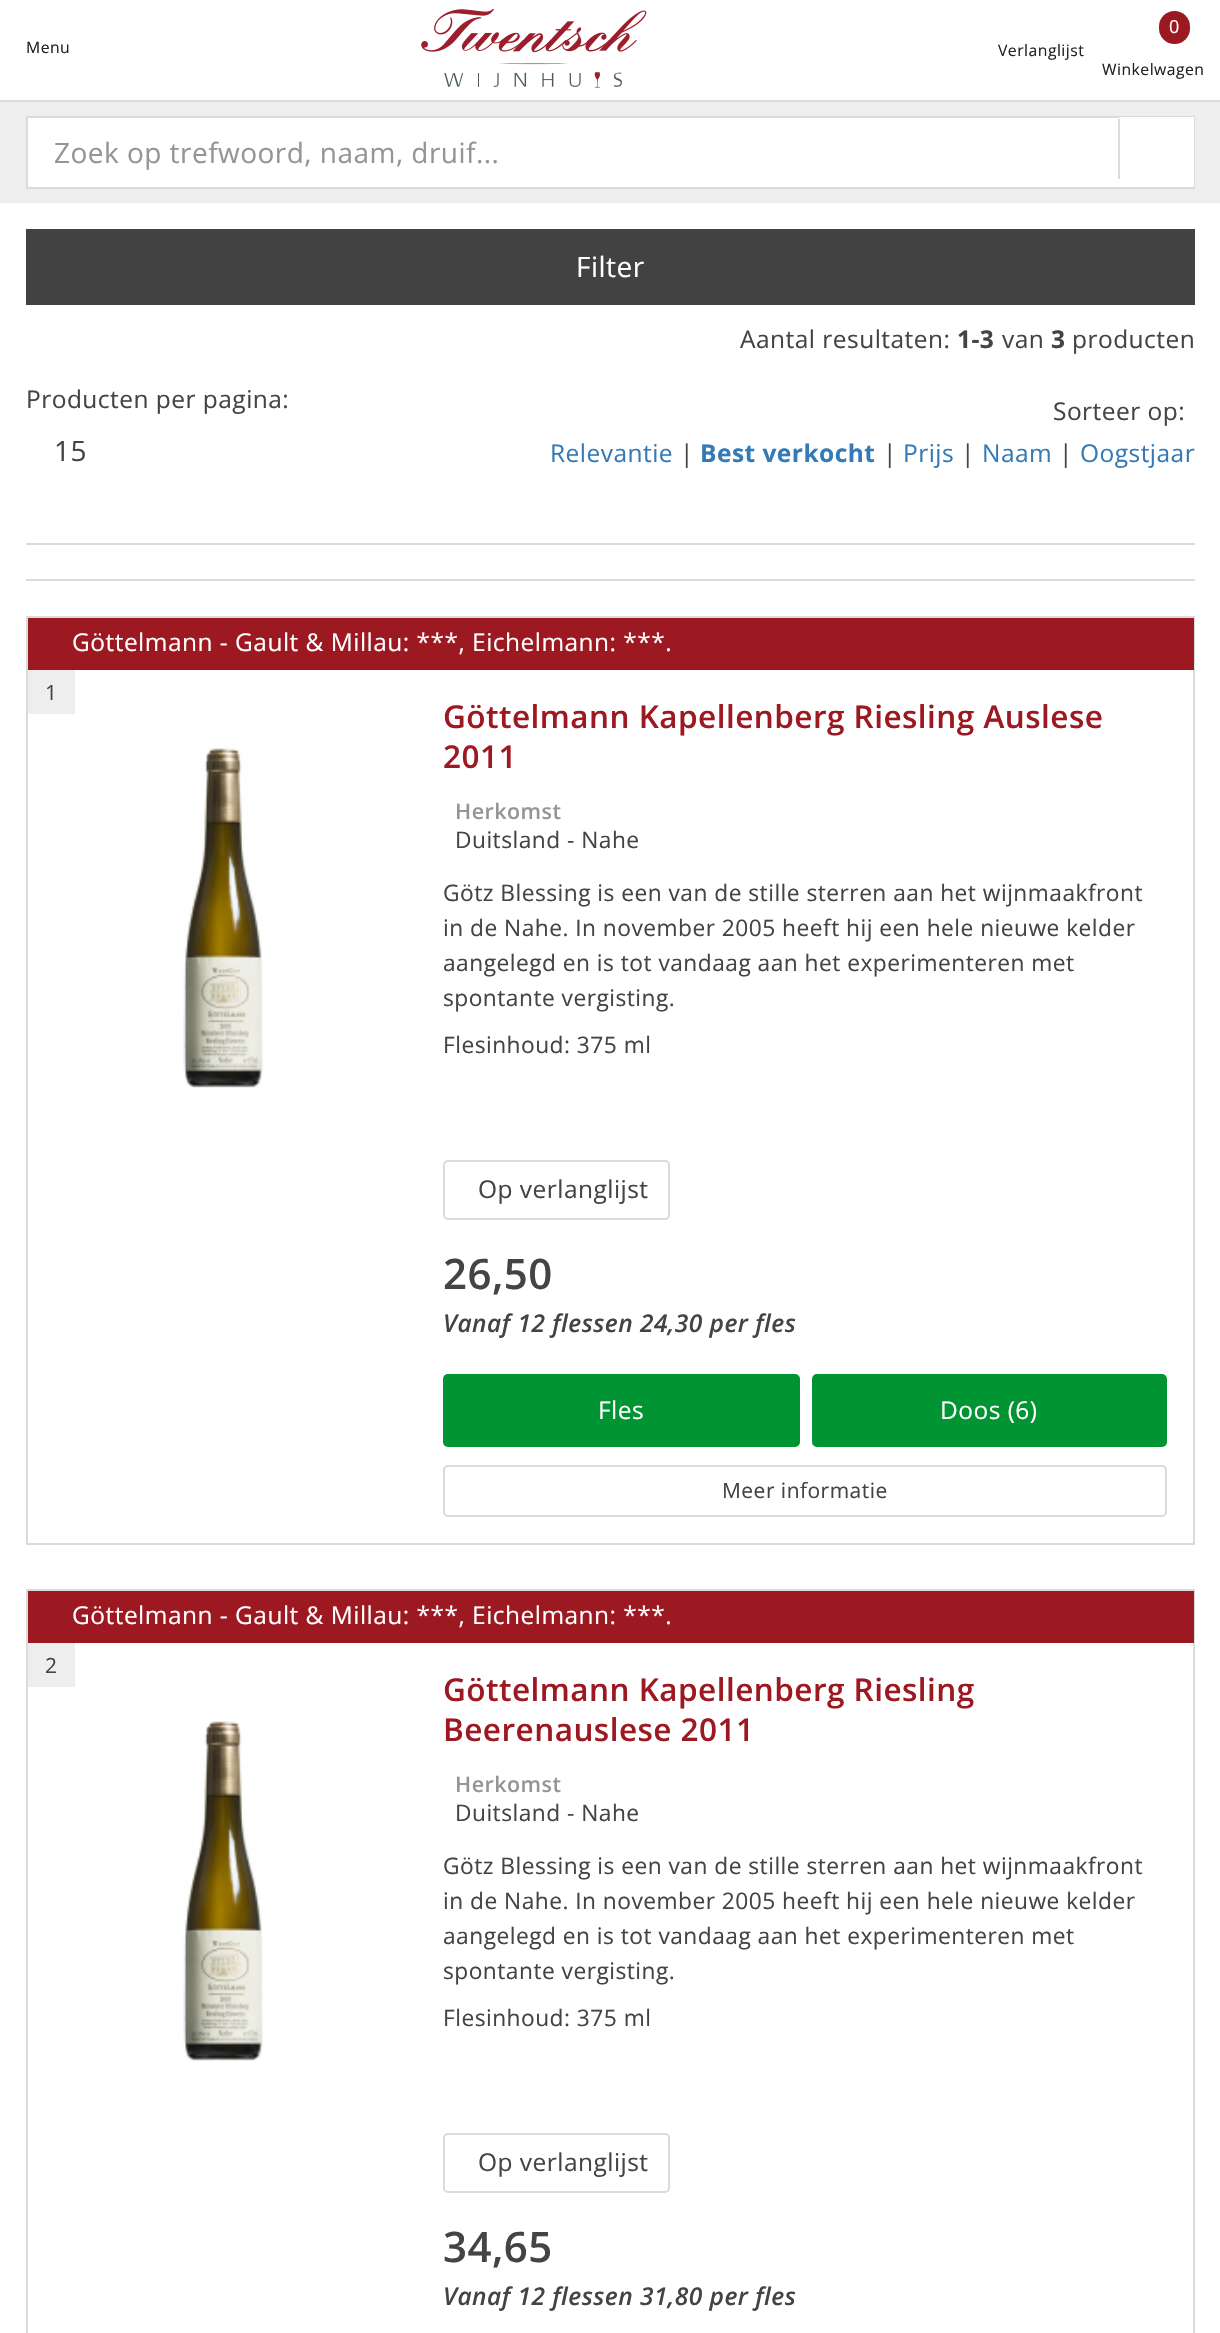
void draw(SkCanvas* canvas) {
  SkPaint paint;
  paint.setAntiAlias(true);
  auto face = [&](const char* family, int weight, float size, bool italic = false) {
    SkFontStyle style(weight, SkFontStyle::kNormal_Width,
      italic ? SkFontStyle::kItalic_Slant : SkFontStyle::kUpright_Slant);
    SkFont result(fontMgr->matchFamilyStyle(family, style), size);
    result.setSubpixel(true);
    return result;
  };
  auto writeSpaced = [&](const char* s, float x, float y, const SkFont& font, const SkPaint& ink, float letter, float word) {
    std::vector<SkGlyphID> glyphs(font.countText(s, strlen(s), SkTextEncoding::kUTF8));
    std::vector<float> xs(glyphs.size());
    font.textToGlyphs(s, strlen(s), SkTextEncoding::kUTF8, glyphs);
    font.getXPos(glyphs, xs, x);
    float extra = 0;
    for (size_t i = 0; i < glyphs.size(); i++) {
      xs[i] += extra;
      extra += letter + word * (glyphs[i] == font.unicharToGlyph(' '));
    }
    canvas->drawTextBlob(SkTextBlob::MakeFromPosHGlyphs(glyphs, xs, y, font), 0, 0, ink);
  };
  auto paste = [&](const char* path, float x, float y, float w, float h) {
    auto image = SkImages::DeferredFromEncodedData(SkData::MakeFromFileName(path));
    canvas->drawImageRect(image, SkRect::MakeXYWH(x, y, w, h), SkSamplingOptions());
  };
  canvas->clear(0xffffffff);
  paint.setColor(0xffdbdbdb);
  canvas->drawRect(SkRect::MakeXYWH(0, 100, 1220, 2), paint);
  paste("img/1.png", 421, 9, 226, 79);
  paint.setColor(0xff9d1922);
  canvas->drawRoundRect(SkRect::MakeXYWH(1159, 11, 31, 33), 15.5f, 15.5f, paint);
  paint.setColor(0xffeeeeee);
  canvas->drawRect(SkRect::MakeXYWH(0, 102, 1220, 101), paint);
  paint.setColor(0xffffffff);
  canvas->drawRect(SkRect::MakeXYWH(28, 118, 1092, 69), paint);
  paint.setStroke(true);
  paint.setStrokeWidth(2);
  paint.setColor(0xffdbdbdb);
  canvas->drawRect(SkRect::MakeXYWH(27, 117, 1167, 71), paint);
  paint.setStroke(false);
  {
    const struct { float x, y, w, h; SkColor color; } items[] = {
      {1120, 117, 74, 70, 0xffffffff},
      {1118, 119, 2, 60, 0xffdbdbdb},
      {26, 229, 1169, 76, 0xff424242},
      {26, 543, 1169, 2, 0xffdbdbdb},
      {26, 579, 1169, 2, 0xffdbdbdb},
    };
    for (auto [x, y, w, h, color] : items) {
      paint.setColor(color);
      canvas->drawRect(SkRect::MakeXYWH(x, y, w, h), paint);
    }
  }
  paint.setStroke(true);
  canvas->drawRect(SkRect::MakeXYWH(27, 617, 1167, 927), paint);
  paint.setStroke(false);
  paint.setColor(0xff9d1922);
  canvas->drawRect(SkRect::MakeXYWH(28, 618, 1166, 52), paint);
  paint.setColor(0xffeeeeee);
  canvas->drawRect(SkRect::MakeXYWH(28, 670, 47, 44), paint);
  paste("img/2.png", 183, 748, 80, 340);
  paint.setStroke(true);
  paint.setColor(0xffdbdbdb);
  canvas->drawRoundRect(SkRect::MakeXYWH(444, 1161, 225, 58), 4, 4, paint);
  paint.setStroke(false);
  paint.setColor(0xff009432);
  canvas->drawRoundRect(SkRect::MakeXYWH(443, 1374, 357, 73), 5, 5, paint);
  canvas->drawRoundRect(SkRect::MakeXYWH(812, 1374, 355, 73), 5, 5, paint);
  paint.setStroke(true);
  paint.setColor(0xffdbdbdb);
  canvas->drawRoundRect(SkRect::MakeXYWH(444, 1466, 722, 50), 4, 4, paint);
  canvas->drawRect(SkRect::MakeXYWH(27, 1590, 1167, 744), paint);
  paint.setStroke(false);
  paint.setColor(0xff9d1922);
  canvas->drawRect(SkRect::MakeXYWH(28, 1591, 1166, 52), paint);
  paint.setColor(0xffeeeeee);
  canvas->drawRect(SkRect::MakeXYWH(28, 1643, 47, 44), paint);
  paste("img/2.png", 183, 1721, 80, 340);
  paint.setStroke(true);
  paint.setColor(0xffdbdbdb);
  canvas->drawRoundRect(SkRect::MakeXYWH(444, 2134, 225, 58), 4, 4, paint);
  auto f0 = face("Open Sans", 400, 15.75f);
  paint.setStroke(false);
  paint.setColor(0xff222222);
  writeSpaced("Menu", 26, 53, f0, paint, 0.47f, 0);
  writeSpaced("Verlanglijst", 998, 56, f0, paint, 0.47f, 0);
  auto f1 = face("Open Sans", 400, 18);
  paint.setColor(0xffffffff);
  writeSpaced("0", 1169, 33, f1, paint, 0.47f, 0);
  paint.setColor(0xff222222);
  writeSpaced("Winkelwagen", 1102, 75, f0, paint, 0.47f, 0);
  auto f2 = face("Open Sans", 400, 28);
  paint.setColor(0xff959595);
  writeSpaced("Zoek op trefwoord, naam, druif...", 54, 163, f2, paint, 0.47f, 0);
  paint.setColor(0xffffffff);
  writeSpaced("Filter", 576, 277, f2, paint, 0.47f, 0);
  auto f3 = face("Open Sans", 400, 24.5f);
  paint.setColor(0xff444444);
  writeSpaced("Aantal resultaten:", 740, 348, f3, paint, 0.47f, 0);
  auto f4 = face("Open Sans", 700, 24.5f);
  writeSpaced("1-3", 957, 348, f4, paint, 0.47f, 0);
  writeSpaced("van", 1002, 348, f3, paint, 0.47f, 0);
  writeSpaced("3", 1051, 348, f4, paint, 0.47f, 0);
  writeSpaced("producten", 1072, 348, f3, paint, 0.47f, 0);
  writeSpaced("Producten per pagina:", 26, 408, f3, paint, 0.47f, 0);
  writeSpaced("15", 54, 461, f2, paint, 0.47f, 0);
  writeSpaced("Sorteer op:", 1053, 420, f3, paint, 0.47f, 0);
  paint.setColor(0xff337ab7);
  writeSpaced("Relevantie", 550, 462, f3, paint, 0.47f, 0);
  paint.setColor(0xff444444);
  writeSpaced("|", 680, 462, f3, paint, 0.47f, 0);
  paint.setColor(0xff337ab7);
  writeSpaced("Best verkocht", 700, 462, f4, paint, 0.47f, 0);
  paint.setColor(0xff444444);
  writeSpaced("|", 883, 462, f3, paint, 0.47f, 0);
  paint.setColor(0xff337ab7);
  writeSpaced("Prijs", 903, 462, f3, paint, 0.47f, 0);
  paint.setColor(0xff444444);
  writeSpaced("|", 961, 462, f3, paint, 0.47f, 0);
  paint.setColor(0xff337ab7);
  writeSpaced("Naam", 982, 462, f3, paint, 0.47f, 0);
  paint.setColor(0xff444444);
  writeSpaced("|", 1059, 462, f3, paint, 0.47f, 0);
  paint.setColor(0xff337ab7);
  writeSpaced("Oogstjaar", 1080, 462, f3, paint, 0.47f, 0);
  paint.setColor(0xffffffff);
  writeSpaced("Göttelmann - Gault & Millau: ***, Eichelmann: ***.", 72, 651, f3, paint, 0.47f, 0);
  auto f5 = face("Open Sans", 400, 21);
  paint.setColor(0xff444444);
  writeSpaced("1", 45, 700, f5, paint, 0.47f, 0);
  auto f6 = face("Open Sans", 600, 31.5f);
  paint.setColor(0xff9d1922);
  writeSpaced("Göttelmann Kapellenberg Riesling Auslese", 443, 728, f6, paint, 0.47f, 0);
  writeSpaced("2011", 443, 768, f6, paint, 0.47f, 0);
  auto f7 = face("Open Sans", 600, 21.5f);
  paint.setColor(0xff959595);
  writeSpaced("Herkomst", 455, 819, f7, paint, 0.47f, 0);
  auto f8 = face("Open Sans", 400, 22.75f);
  paint.setColor(0xff444444);
  {
    const struct { const char* s; float x, y; } items[] = {
      {"Duitsland - Nahe", 455, 848},
      {"Götz Blessing is een van de stille sterren aan het wijnmaakfront", 443, 901},
      {"in de Nahe. In november 2005 heeft hij een hele nieuwe kelder", 443, 936},
      {"aangelegd en is tot vandaag aan het experimenteren met", 443, 971},
      {"spontante vergisting.", 443, 1006},
      {"Flesinhoud: 375 ml", 443, 1053},
    };
    for (auto [s, x, y] : items) {
      writeSpaced(s, x, y, f8, paint, 0.47f, 0);
    }
  }
  writeSpaced("Op verlanglijst", 478, 1198, f3, paint, 0.47f, 0);
  auto f9 = face("Open Sans", 600, 42);
  writeSpaced("26,50", 443, 1289, f9, paint, 0.47f, 0);
  auto f10 = face("Open Sans", 600, 24.5f, true);
  writeSpaced("Vanaf 12 flessen 24,30 per fles", 443, 1332, f10, paint, 0.47f, 0);
  paint.setColor(0xffffffff);
  writeSpaced("Fles", 598, 1419, f3, paint, 0.47f, 0);
  writeSpaced("Doos (6)", 940, 1419, f3, paint, 0.47f, 0);
  paint.setColor(0xff444444);
  writeSpaced("Meer informatie", 722, 1498, f5, paint, 0.47f, 0);
  paint.setColor(0xffffffff);
  writeSpaced("Göttelmann - Gault & Millau: ***, Eichelmann: ***.", 72, 1624, f3, paint, 0.47f, 0);
  paint.setColor(0xff444444);
  writeSpaced("2", 45, 1673, f5, paint, 0.47f, 0);
  paint.setColor(0xff9d1922);
  writeSpaced("Göttelmann Kapellenberg Riesling", 443, 1701, f6, paint, 0.47f, 0);
  writeSpaced("Beerenauslese 2011", 443, 1741, f6, paint, 0.47f, 0);
  paint.setColor(0xff959595);
  writeSpaced("Herkomst", 455, 1792, f7, paint, 0.47f, 0);
  paint.setColor(0xff444444);
  {
    const struct { const char* s; float x, y; } items[] = {
      {"Duitsland - Nahe", 455, 1821},
      {"Götz Blessing is een van de stille sterren aan het wijnmaakfront", 443, 1874},
      {"in de Nahe. In november 2005 heeft hij een hele nieuwe kelder", 443, 1909},
      {"aangelegd en is tot vandaag aan het experimenteren met", 443, 1944},
      {"spontante vergisting.", 443, 1979},
      {"Flesinhoud: 375 ml", 443, 2026},
    };
    for (auto [s, x, y] : items) {
      writeSpaced(s, x, y, f8, paint, 0.47f, 0);
    }
  }
  writeSpaced("Op verlanglijst", 478, 2171, f3, paint, 0.47f, 0);
  writeSpaced("34,65", 443, 2262, f9, paint, 0.47f, 0);
  writeSpaced("Vanaf 12 flessen 31,80 per fles", 443, 2305, f10, paint, 0.47f, 0);
}
